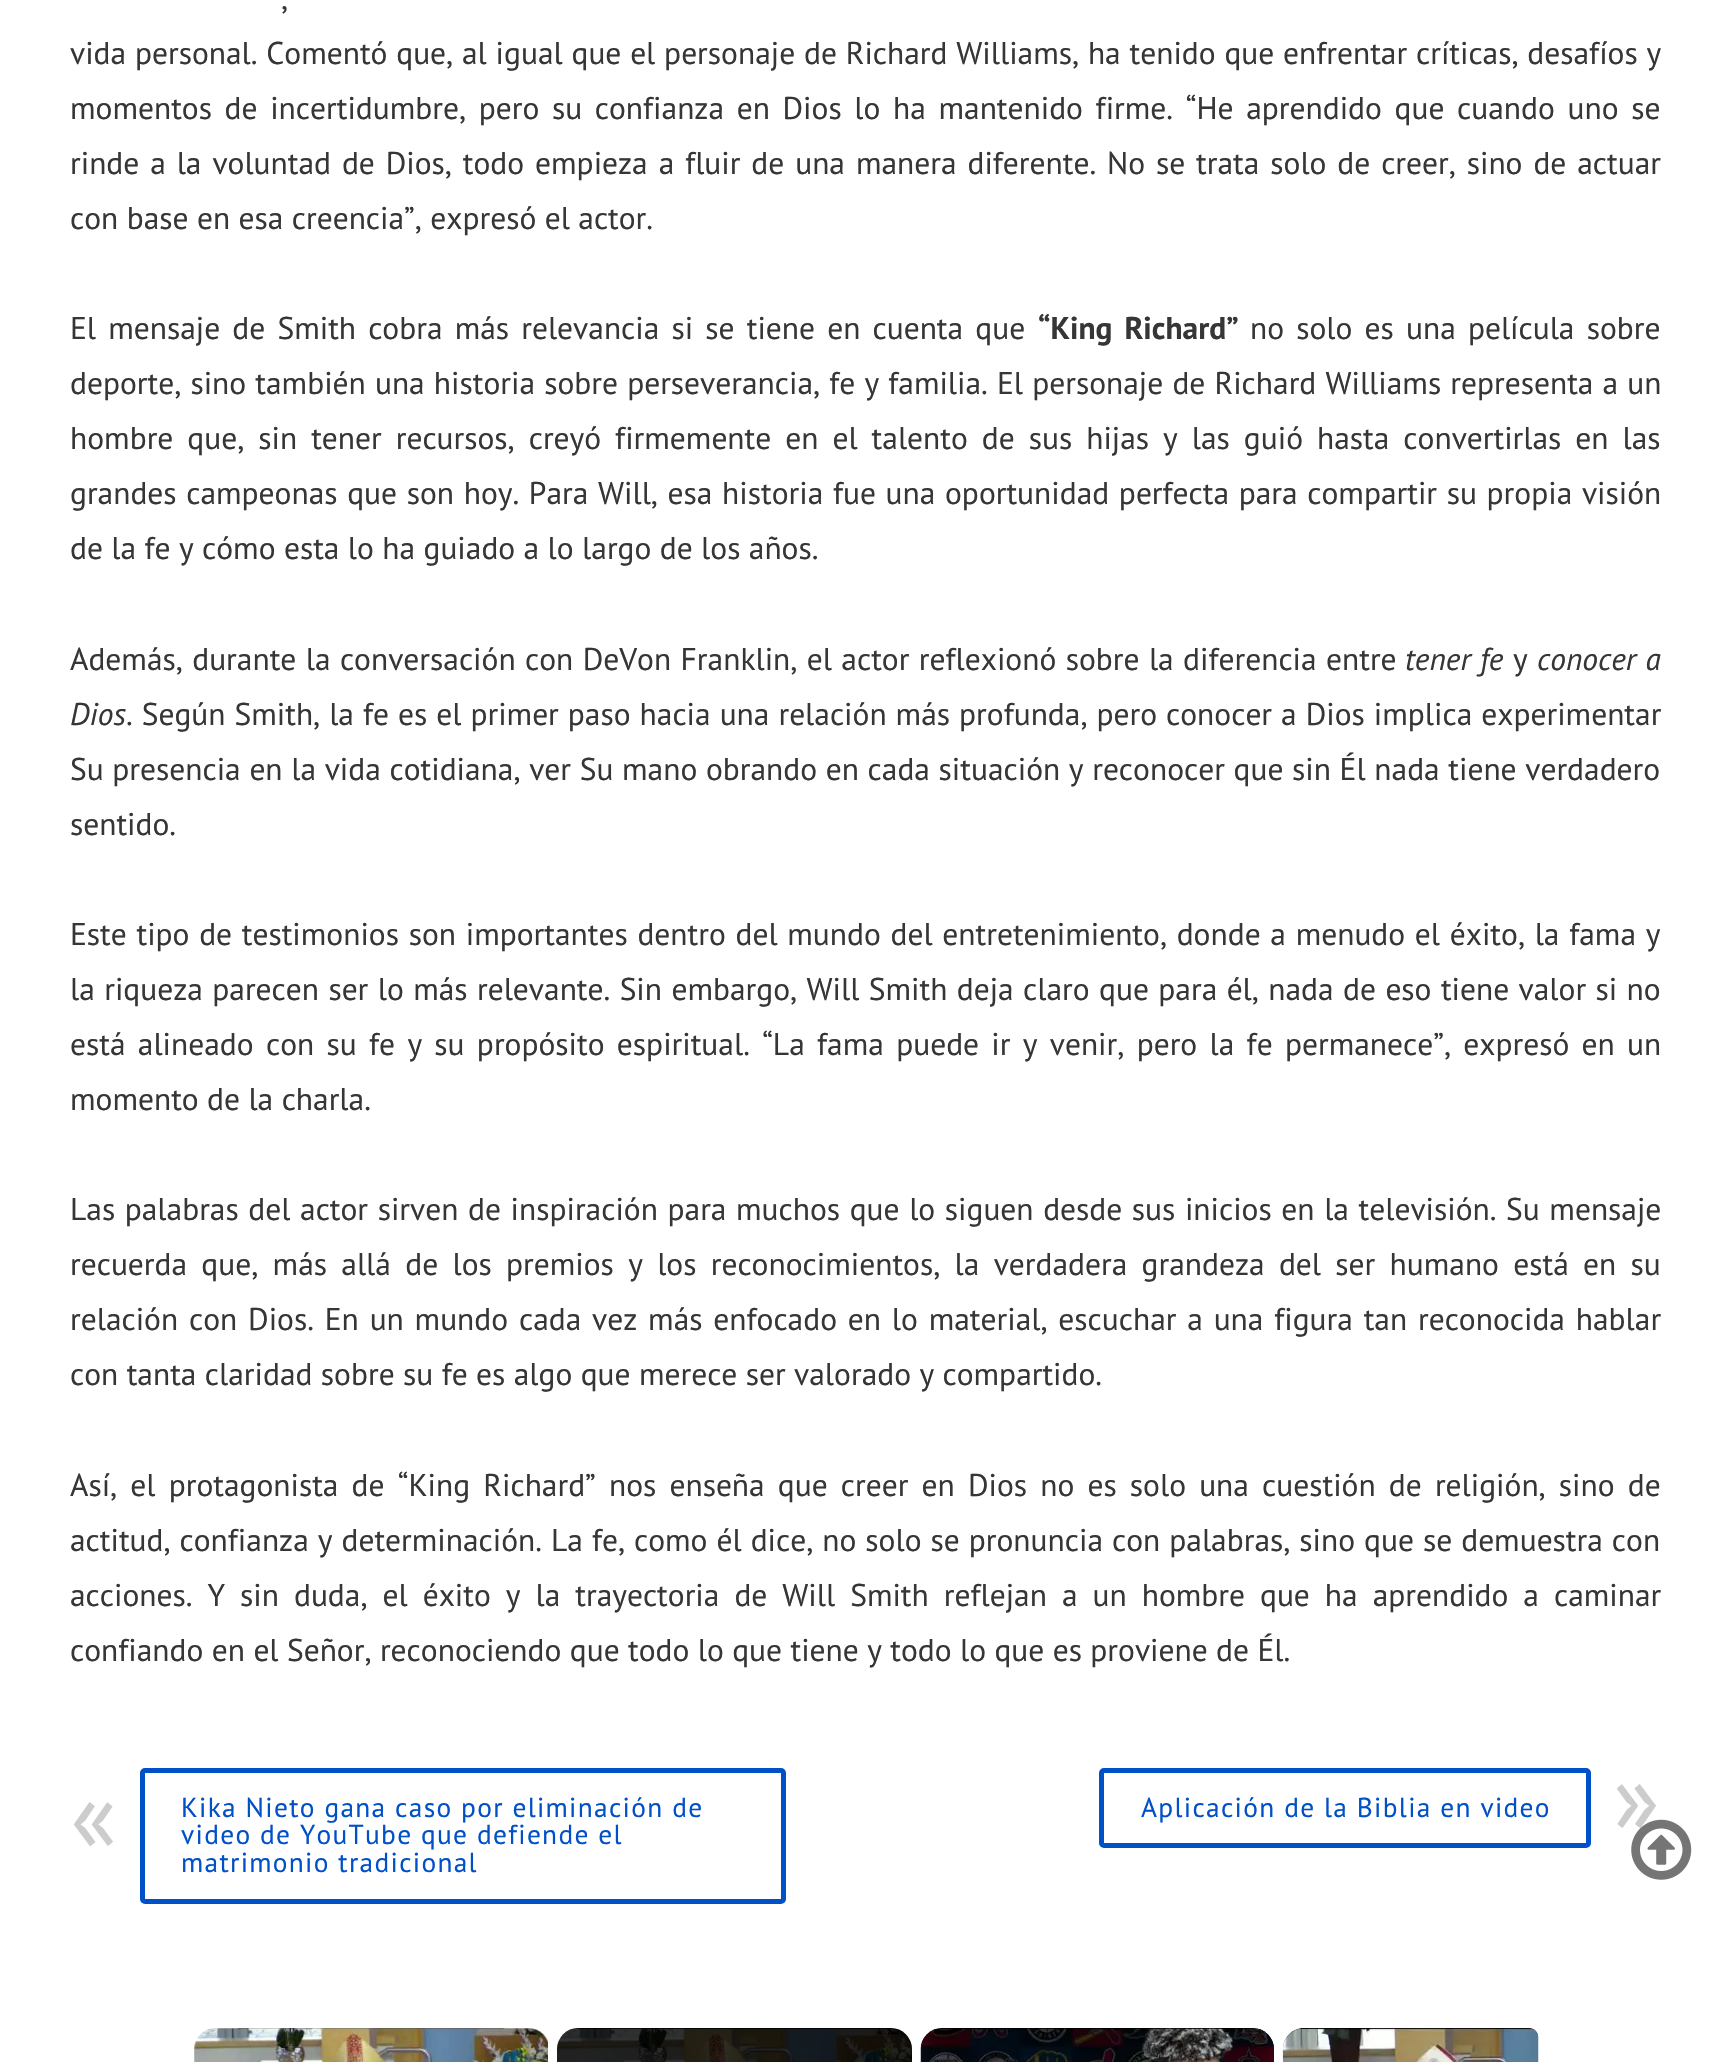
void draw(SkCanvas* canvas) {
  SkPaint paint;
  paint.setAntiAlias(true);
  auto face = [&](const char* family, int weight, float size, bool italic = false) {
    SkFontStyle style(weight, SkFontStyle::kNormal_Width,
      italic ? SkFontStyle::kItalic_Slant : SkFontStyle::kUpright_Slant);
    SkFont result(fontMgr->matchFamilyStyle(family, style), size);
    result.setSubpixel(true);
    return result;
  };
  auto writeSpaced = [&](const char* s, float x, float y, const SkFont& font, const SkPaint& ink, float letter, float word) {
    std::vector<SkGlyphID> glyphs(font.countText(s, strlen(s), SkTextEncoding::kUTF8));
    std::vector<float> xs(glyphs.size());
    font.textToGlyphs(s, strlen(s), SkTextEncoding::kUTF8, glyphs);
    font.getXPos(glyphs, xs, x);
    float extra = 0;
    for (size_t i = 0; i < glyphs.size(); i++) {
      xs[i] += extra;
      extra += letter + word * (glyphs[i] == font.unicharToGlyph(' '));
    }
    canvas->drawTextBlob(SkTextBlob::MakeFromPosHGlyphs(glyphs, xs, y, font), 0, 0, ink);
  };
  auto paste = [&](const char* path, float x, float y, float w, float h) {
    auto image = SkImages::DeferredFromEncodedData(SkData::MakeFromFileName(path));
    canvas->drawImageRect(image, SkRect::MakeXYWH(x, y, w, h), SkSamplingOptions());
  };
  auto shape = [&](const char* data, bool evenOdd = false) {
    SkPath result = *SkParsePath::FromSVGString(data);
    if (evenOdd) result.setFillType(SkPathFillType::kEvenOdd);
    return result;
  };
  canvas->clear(0xffffffff);
  paint.setStroke(true);
  paint.setStrokeWidth(5);
  paint.setColor(0xff0050c7);
  canvas->drawRoundRect(SkRect::MakeXYWH(142.5f, 1770.5f, 641, 131), 2.5f, 2.5f, paint);
  canvas->drawRoundRect(SkRect::MakeXYWH(1101.5f, 1770.5f, 487, 75), 2.5f, 2.5f, paint);
  paste("img/2.png", 237, 2028, 268, 1);
  paste("img/1.png", 194, 2028, 354, 34);
  paint.setStroke(false);
  paint.setColor(0xff000000);
  canvas->drawRoundRect(SkRect::MakeXYWH(557, 2028, 355, 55), 21, 21, paint);
  paste("img/3.png", 557, 2028, 355, 34);
  canvas->drawRoundRect(SkRect::MakeXYWH(921, 2028, 353, 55), 21, 21, paint);
  paste("img/4.png", 920, 2028, 354, 34);
  canvas->drawPath(shape("M1304 2028H1529C1534 2028 1538 2032 1538 2037V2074C1538 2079 1534 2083 1529 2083H1304C1292.5 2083 1283 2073.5 1283 2062V2049C1283 2037.5 1292.5 2028 1304 2028Z"), paint);
  paste("img/5.png", 1282, 2028, 257, 34);
  auto f0 = face("PT Sans", 400, 31.47f);
  paint.setColor(0xff363636);
  writeSpaced(",", 281, 9, f0, paint, 0, 1);
  writeSpaced("vida personal. Comentó que, al igual que el personaje de Richard Williams, ha tenido que enfrentar críticas, desafíos y", 70, 64, f0, paint, 0, 0.4f);
  writeSpaced("momentos de incertidumbre, pero su confianza en Dios lo ha mantenido firme. “He aprendido que cuando uno se", 70, 119, f0, paint, 0, 4.25f);
  writeSpaced("rinde a la voluntad de Dios, todo empieza a fluir de una manera diferente. No se trata solo de creer, sino de actuar", 70, 174, f0, paint, 0, 2.5f);
  canvas->drawString("con base en esa creencia”, expresó el actor.", 70, 229, f0, paint);
  writeSpaced("El mensaje de Smith cobra más relevancia si se tiene en cuenta que", 70, 339, f0, paint, 0, 3.75f);
  auto f1 = face("PT Sans", 700, 31.47f);
  writeSpaced("“King Richard”", 1038, 339, f1, paint, 0, 4);
  writeSpaced("no solo es una película sobre", 1250, 339, f0, paint, 0, 3.75f);
  writeSpaced("deporte, sino también una historia sobre perseverancia, fe y familia. El personaje de Richard Williams representa a un", 70, 394, f0, paint, 0, 0.75f);
  writeSpaced("hombre que, sin tener recursos, creyó firmemente en el talento de sus hijas y las guió hasta convertirlas en las", 70, 449, f0, paint, 0, 5.6f);
  writeSpaced("grandes campeonas que son hoy. Para Will, esa historia fue una oportunidad perfecta para compartir su propia visión", 70, 504, f0, paint, 0, 1.25f);
  canvas->drawString("de la fe y cómo esta lo ha guiado a lo largo de los años.", 70, 559, f0, paint);
  writeSpaced("Además, durante la conversación con DeVon Franklin, el actor reflexionó sobre la diferencia entre", 70, 670, f0, paint, 0, 1);
  auto f2 = face("PT Sans", 400, 31.47f, true);
  writeSpaced("tener fe", 1405, 670, f2, paint, 0, 1);
  canvas->drawString("y", 1513, 670, f0, paint);
  writeSpaced("conocer a", 1537, 670, f2, paint, 0, 1);
  canvas->drawString("Dios", 70, 725, f2, paint);
  writeSpaced(". Según Smith, la fe es el primer paso hacia una relación más profunda, pero conocer a Dios implica experimentar", 126, 725, f0, paint, 0, 0.6f);
  writeSpaced("Su presencia en la vida cotidiana, ver Su mano obrando en cada situación y reconocer que sin Él nada tiene verdadero", 70, 780, f0, paint, 0, 0.25f);
  canvas->drawString("sentido.", 70, 835, f0, paint);
  writeSpaced("Este tipo de testimonios son importantes dentro del mundo del entretenimiento, donde a menudo el éxito, la fama y", 70, 945, f0, paint, 0, 1.3f);
  writeSpaced("la riqueza parecen ser lo más relevante. Sin embargo, Will Smith deja claro que para él, nada de eso tiene valor si no", 70, 1000, f0, paint, 0, 1);
  writeSpaced("está alineado con su fe y su propósito espiritual. “La fama puede ir y venir, pero la fe permanece”, expresó en un", 70, 1055, f0, paint, 0, 3.9f);
  canvas->drawString("momento de la charla.", 70, 1110, f0, paint);
  writeSpaced("Las palabras del actor sirven de inspiración para muchos que lo siguen desde sus inicios en la televisión. Su mensaje", 70, 1220, f0, paint, 0, 1.2f);
  writeSpaced("recuerda que, más allá de los premios y los reconocimientos, la verdadera grandeza del ser humano está en su", 70, 1275, f0, paint, 0, 5.9f);
  writeSpaced("relación con Dios. En un mundo cada vez más enfocado en lo material, escuchar a una figura tan reconocida hablar", 70, 1330, f0, paint, 0, 2.4f);
  canvas->drawString("con tanta claridad sobre su fe es algo que merece ser valorado y compartido.", 70, 1385, f0, paint);
  writeSpaced("Así, el protagonista de “King Richard” nos enseña que creer en Dios no es solo una cuestión de religión, sino de", 70, 1496, f0, paint, 0, 4.75f);
  writeSpaced("actitud, confianza y determinación. La fe, como él dice, no solo se pronuncia con palabras, sino que se demuestra con", 70, 1551, f0, paint, 0, 0.6f);
  writeSpaced("acciones. Y sin duda, el éxito y la trayectoria de Will Smith reflejan a un hombre que ha aprendido a caminar", 70, 1606, f0, paint, 0, 6.6f);
  canvas->drawString("confiando en el Señor, reconociendo que todo lo que tiene y todo lo que es proviene de Él.", 70, 1661, f0, paint);
  auto f3 = face("PT Sans", 400, 98);
  paint.setColor(0xffcccccc);
  writeSpaced("«", 70, 1850, f3, paint, 1.3f, 0);
  auto f4 = face("PT Sans", 400, 27.4f);
  paint.setColor(0xff0050c7);
  {
    const struct { const char* s; float x, y; } items[] = {
      {"Kika Nieto gana caso por eliminación de", 181, 1817},
      {"video de YouTube que defiende el", 181, 1844},
      {"matrimonio tradicional", 181, 1872},
      {"Aplicación de la Biblia en video", 1141, 1817},
    };
    for (auto [s, x, y] : items) {
      writeSpaced(s, x, y, f4, paint, 1.3f, 0);
    }
  }
  paint.setColor(0xffcccccc);
  writeSpaced("»", 1613, 1832, f3, paint, 1.3f, 0);
  paste("img/6.png", 1631, 1819, 61, 61);
}
